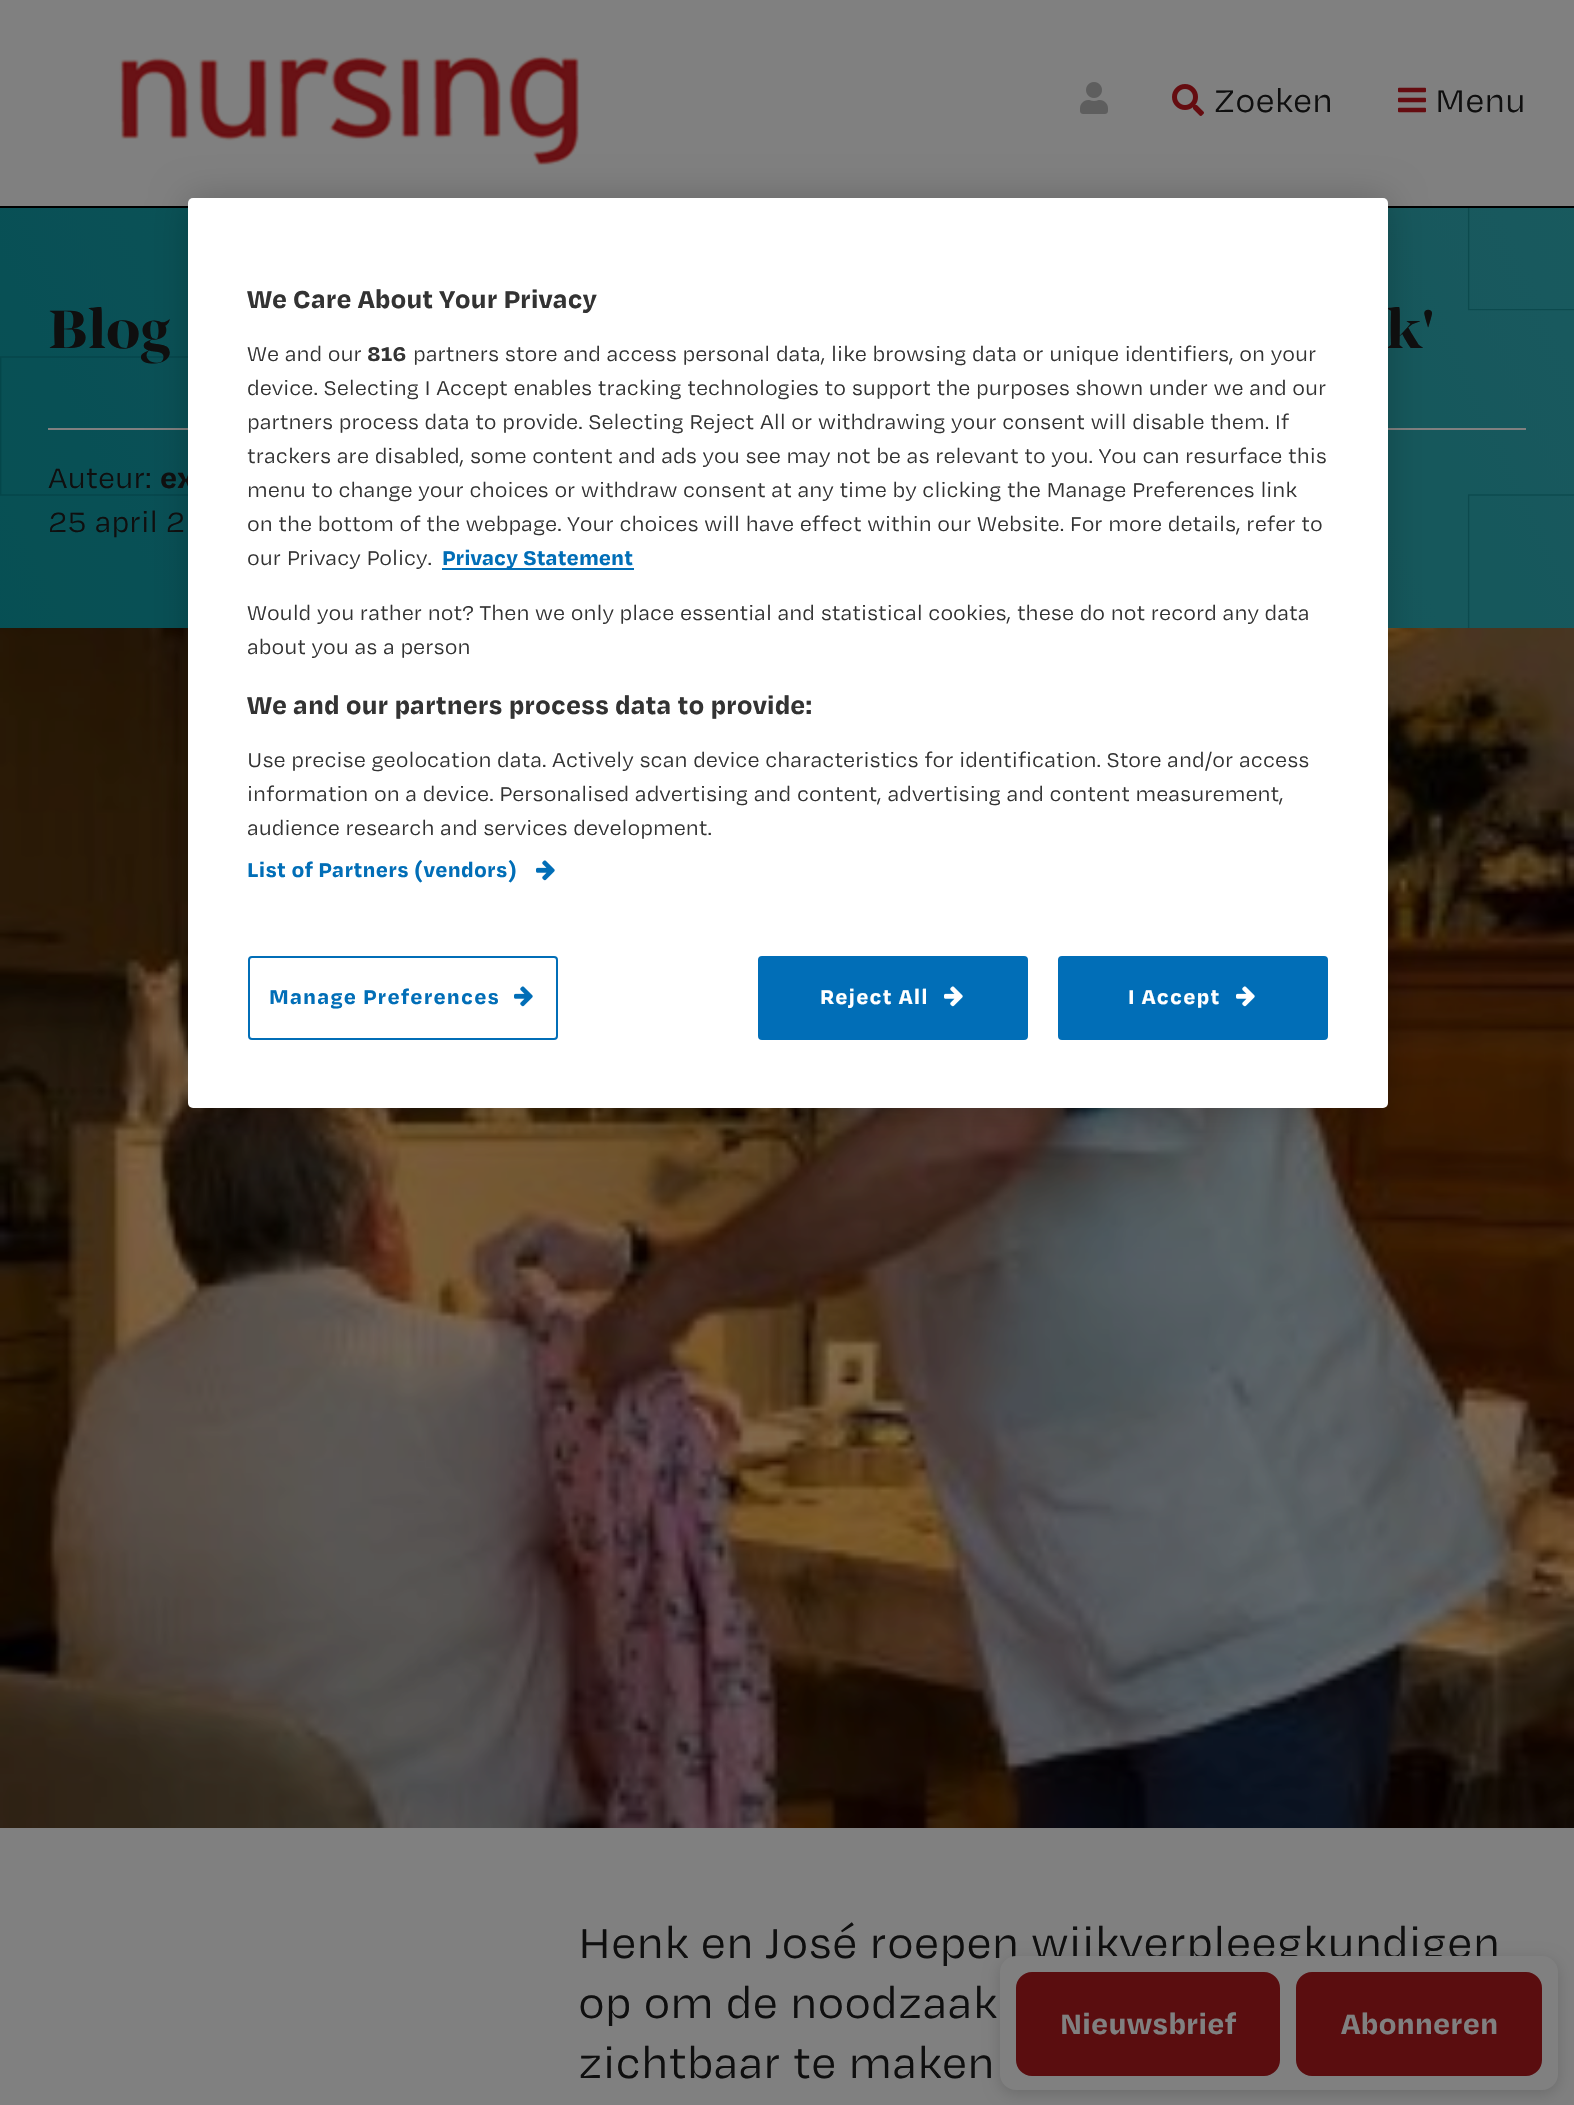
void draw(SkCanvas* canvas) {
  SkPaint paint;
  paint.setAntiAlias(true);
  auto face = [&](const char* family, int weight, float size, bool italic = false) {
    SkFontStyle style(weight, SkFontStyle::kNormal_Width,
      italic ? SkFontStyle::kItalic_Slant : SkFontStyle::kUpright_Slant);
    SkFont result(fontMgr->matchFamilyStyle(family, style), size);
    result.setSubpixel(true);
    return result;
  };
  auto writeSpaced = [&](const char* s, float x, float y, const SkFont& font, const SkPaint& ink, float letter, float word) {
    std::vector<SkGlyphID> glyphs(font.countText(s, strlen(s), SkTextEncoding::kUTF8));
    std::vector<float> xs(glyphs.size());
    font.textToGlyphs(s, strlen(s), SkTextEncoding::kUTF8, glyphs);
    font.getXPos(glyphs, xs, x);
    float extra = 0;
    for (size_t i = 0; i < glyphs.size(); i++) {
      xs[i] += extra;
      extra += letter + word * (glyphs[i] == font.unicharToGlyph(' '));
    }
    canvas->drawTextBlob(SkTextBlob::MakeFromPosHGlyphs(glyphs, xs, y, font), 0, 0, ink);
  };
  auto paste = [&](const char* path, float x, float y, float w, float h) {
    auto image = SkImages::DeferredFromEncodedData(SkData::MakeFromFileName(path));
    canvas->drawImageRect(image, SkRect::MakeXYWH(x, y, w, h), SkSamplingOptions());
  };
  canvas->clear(0xff808080);
  paint.setColor(0xff000000);
  canvas->drawRect(SkRect::MakeXYWH(0, 206, 1574, 2), paint);
  paste("img/1.png", 119, 55, 461, 111);
  paste("img/2.png", 1080, 82, 28, 32);
  paste("img/3.png", 1172, 84, 32, 32);
  paste("img/4.png", 1398, 87, 28, 26);
  paint.setColor(0x29000000);
  paint.setMaskFilter(SkMaskFilter::MakeBlur(kNormal_SkBlurStyle, 8));
  canvas->drawRoundRect(SkRect::MakeXYWH(1000, 1960, 558, 134), 16, 16, paint);
  paint.setMaskFilter(nullptr);
  paste("img/5.png", 0, 208, 1574, 420);
  paint.setColor(0xff808080);
  canvas->drawRect(SkRect::MakeXYWH(48, 428, 1478, 2), paint);
  paste("img/6.png", 0, 628, 1574, 1200);
  paint.setColor(0x33000000);
  paint.setMaskFilter(SkMaskFilter::MakeBlur(kNormal_SkBlurStyle, 18));
  canvas->drawRoundRect(SkRect::MakeXYWH(188, 198, 1200, 910), 5, 5, paint);
  paint.setMaskFilter(nullptr);
  auto f0 = face("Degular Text", 400, 36);
  paint.setColor(0xff0f0f0f);
  canvas->drawString("Zoeken", 1214, 112, f0, paint);
  canvas->drawString("Menu", 1435, 112, f0, paint);
  auto f1 = face("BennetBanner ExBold", 800, 56);
  canvas->drawString("Blog", 48, 348, f1, paint);
  canvas->drawString("k'", 1386, 348, f1, paint);
  auto f2 = face("Degular Text", 400, 32);
  canvas->drawString("Auteur:", 48, 488, f2, paint);
  auto f3 = face("Degular Text", 700, 32);
  canvas->drawString("ex", 160, 488, f3, paint);
  canvas->drawString("25 april 2", 48, 532, f2, paint);
  auto f4 = face("Degular Text", 400, 48);
  canvas->drawString("Henk en José roepen wijkverpleegkundigen", 578, 1958, f4, paint);
  paint.setColor(0xff808080);
  canvas->drawRoundRect(SkRect::MakeXYWH(1000, 1956, 558, 134), 16, 16, paint);
  paint.setColor(0xff5a0d0f);
  canvas->drawRoundRect(SkRect::MakeXYWH(1298, 1974, 242, 100), 14, 14, paint);
  paint.setStroke(true);
  paint.setStrokeWidth(4);
  canvas->drawRoundRect(SkRect::MakeXYWH(1298, 1974, 242, 100), 14, 14, paint);
  paint.setStroke(false);
  paint.setColor(0xff808080);
  canvas->drawString("Abonneren", 1341, 2034, f3, paint);
  paint.setColor(0xff5a0d0f);
  canvas->drawRoundRect(SkRect::MakeXYWH(1018, 1974, 260, 100), 14, 14, paint);
  paint.setStroke(true);
  canvas->drawRoundRect(SkRect::MakeXYWH(1018, 1974, 260, 100), 14, 14, paint);
  paint.setStroke(false);
  paint.setColor(0xff808080);
  canvas->drawString("Nieuwsbrief", 1060, 2034, f3, paint);
  paint.setColor(0xff0f0f0f);
  canvas->drawString("op om de noodzaak", 578, 2018, f4, paint);
  canvas->drawString("zichtbaar te maken", 578, 2078, f4, paint);
  paint.setColor(0xffffffff);
  canvas->drawRoundRect(SkRect::MakeXYWH(188, 198, 1200, 910), 5, 5, paint);
  auto f5 = face("Degular Text", 700, 28);
  paint.setColor(0xff333333);
  canvas->drawString("We Care About Your Privacy", 247, 308, f5, paint);
  auto f6 = face("Degular Text", 400, 22.75f);
  canvas->drawString("We and our", 247, 361, f6, paint);
  auto f7 = face("Degular Text", 700, 22.75f);
  canvas->drawString("816", 367, 361, f7, paint);
  {
    const struct { const char* s; float x, y; } items[] = {
      {"partners store and access personal data, like browsing data or unique identifiers, on your", 413, 361},
      {"device. Selecting I Accept enables tracking technologies to support the purposes shown under we and our", 247, 395},
      {"partners process data to provide. Selecting Reject All or withdrawing your consent will disable them. If", 247, 429},
      {"trackers are disabled, some content and ads you see may not be as relevant to you. You can resurface this", 247, 463},
      {"menu to change your choices or withdraw consent at any time by clicking the Manage Preferences link", 247, 497},
      {"on the bottom of the webpage. Your choices will have effect within our Website. For more details, refer to", 247, 531},
      {"our Privacy Policy.", 247, 565},
    };
    for (auto [s, x, y] : items) {
      canvas->drawString(s, x, y, f6, paint);
    }
  }
  paint.setColor(0xff016eb7);
  canvas->drawRect(SkRect::MakeXYWH(442, 568, 192, 2), paint);
  canvas->drawString("Privacy Statement", 442, 565, f7, paint);
  paint.setColor(0xff333333);
  canvas->drawString("Would you rather not? Then we only place essential and statistical cookies, these do not record any data", 247, 620, f6, paint);
  canvas->drawString("about you as a person", 247, 654, f6, paint);
  canvas->drawString("We and our partners process data to provide:", 247, 714, f5, paint);
  {
    const struct { const char* s; float x, y; } items[] = {
      {"Use precise geolocation data. Actively scan device characteristics for identification. Store and/or access", 247, 767},
      {"information on a device. Personalised advertising and content, advertising and content measurement,", 247, 801},
      {"audience research and services development.", 247, 835},
    };
    for (auto [s, x, y] : items) {
      canvas->drawString(s, x, y, f6, paint);
    }
  }
  paint.setColor(0xff016eb7);
  writeSpaced("List of Partners (vendors)", 247, 877, f7, paint, 0.25f, 0);
  paste("img/7.png", 536, 860, 19, 21);
  paint.setStroke(true);
  paint.setStrokeWidth(2);
  canvas->drawRoundRect(SkRect::MakeXYWH(249, 957, 308, 82), 3, 3, paint);
  paint.setStroke(false);
  writeSpaced("Manage Preferences", 269, 1004, f7, paint, 1.1f, 0);
  paste("img/7.png", 514, 986, 19, 21);
  canvas->drawRoundRect(SkRect::MakeXYWH(759, 957, 268, 82), 3, 3, paint);
  paint.setStroke(true);
  canvas->drawRoundRect(SkRect::MakeXYWH(759, 957, 268, 82), 3, 3, paint);
  paint.setStroke(false);
  paint.setColor(0xffffffff);
  writeSpaced("Reject All", 820, 1004, f7, paint, 1.1f, 0);
  paste("img/8.png", 944, 986, 19, 21);
  paint.setColor(0xff016eb7);
  canvas->drawRoundRect(SkRect::MakeXYWH(1059, 957, 268, 82), 3, 3, paint);
  paint.setStroke(true);
  canvas->drawRoundRect(SkRect::MakeXYWH(1059, 957, 268, 82), 3, 3, paint);
  paint.setStroke(false);
  paint.setColor(0xffffffff);
  writeSpaced("I Accept", 1128, 1004, f7, paint, 1.1f, 0);
  paste("img/8.png", 1236, 986, 19, 21);
}
